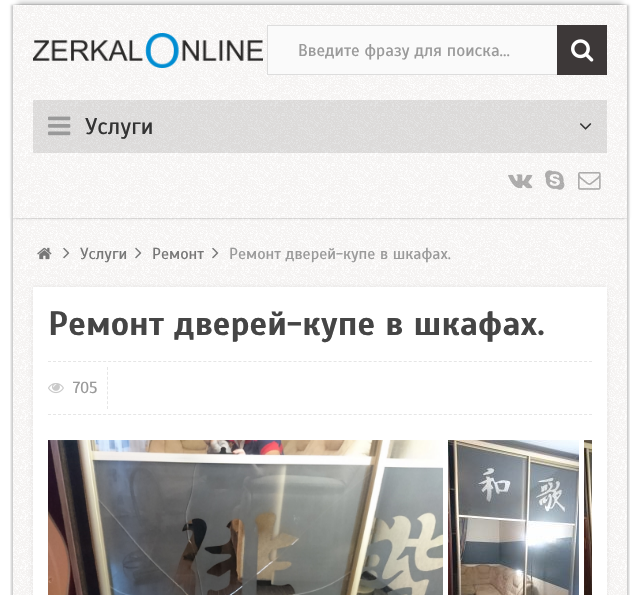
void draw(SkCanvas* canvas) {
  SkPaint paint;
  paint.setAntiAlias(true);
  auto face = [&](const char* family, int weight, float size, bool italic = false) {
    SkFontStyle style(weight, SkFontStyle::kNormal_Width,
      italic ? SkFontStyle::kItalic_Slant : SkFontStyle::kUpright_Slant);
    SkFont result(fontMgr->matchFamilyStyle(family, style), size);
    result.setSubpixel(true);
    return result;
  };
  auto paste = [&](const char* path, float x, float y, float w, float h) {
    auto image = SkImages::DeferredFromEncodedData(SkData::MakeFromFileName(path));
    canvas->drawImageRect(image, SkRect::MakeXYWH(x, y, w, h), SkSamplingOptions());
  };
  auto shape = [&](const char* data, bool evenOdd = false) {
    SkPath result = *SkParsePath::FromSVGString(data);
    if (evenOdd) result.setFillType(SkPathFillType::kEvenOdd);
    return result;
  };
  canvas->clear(0xffffffff);
  canvas->save();
  canvas->clipRect(SkRect::MakeXYWH(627, 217, 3, 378));
  paint.setColor(0x33000000);
  paint.setMaskFilter(SkMaskFilter::MakeBlur(kNormal_SkBlurStyle, 1));
  canvas->drawRect(SkRect::MakeXYWH(15, 218, 614, 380), paint);
  paint.setMaskFilter(nullptr);
  canvas->restore();
  canvas->save();
  canvas->clipRect(SkRect::MakeXYWH(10, 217, 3, 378));
  paint.setMaskFilter(SkMaskFilter::MakeBlur(kNormal_SkBlurStyle, 1));
  canvas->drawRect(SkRect::MakeXYWH(11, 218, 614, 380), paint);
  paint.setMaskFilter(nullptr);
  canvas->restore();
  paste("img/9.png", 13, 218, 614, 377);
  paint.setMaskFilter(SkMaskFilter::MakeBlur(kNormal_SkBlurStyle, 1));
  canvas->drawRect(SkRect::MakeXYWH(15, 5, 614, 213), paint);
  paint.setMaskFilter(nullptr);
  paint.setMaskFilter(SkMaskFilter::MakeBlur(kNormal_SkBlurStyle, 1));
  canvas->drawRect(SkRect::MakeXYWH(11, 5, 614, 213), paint);
  paint.setMaskFilter(nullptr);
  paint.setMaskFilter(SkMaskFilter::MakeBlur(kNormal_SkBlurStyle, 2.5f));
  canvas->drawRect(SkRect::MakeXYWH(18, 2, 604, 203), paint);
  paint.setMaskFilter(nullptr);
  paint.setColor(0xffffffff);
  canvas->drawRect(SkRect::MakeXYWH(13, 5, 614, 213), paint);
  paste("img/1.png", 13, 5, 614, 213);
  paste("img/2.png", 33, 33, 230, 35);
  paint.setColor(0xfffafafa);
  canvas->drawRect(SkRect::MakeXYWH(268, 26, 289, 48), paint);
  paint.setStroke(true);
  paint.setStrokeWidth(1);
  paint.setColor(0xffdddddd);
  canvas->drawRect(SkRect::MakeXYWH(267.5f, 25.5f, 339, 49), paint);
  paint.setStroke(false);
  paint.setColor(0xff3d3838);
  canvas->drawRect(SkRect::MakeXYWH(557, 25, 50, 50), paint);
  paste("img/3.png", 571, 39, 23, 23);
  paint.setColor(0x1a000000);
  canvas->drawRect(SkRect::MakeXYWH(33, 100, 574, 53), paint);
  paste("img/4.png", 48, 116, 23, 20);
  paste("img/5.png", 580, 123, 12, 7);
  paste("img/6.png", 508, 174, 25, 15);
  paste("img/7.png", 545, 170, 20, 20);
  paste("img/8.png", 578, 172, 23, 18);
  paste("img/10.png", 37, 247, 15, 13);
  paste("img/11.png", 63, 247, 7, 12);
  paste("img/12.png", 135, 247, 7, 12);
  paste("img/13.png", 212, 247, 7, 12);
  paint.setColor(0x12000000);
  paint.setMaskFilter(SkMaskFilter::MakeBlur(kNormal_SkBlurStyle, 2.5f));
  canvas->drawRect(SkRect::MakeXYWH(33, 287, 574, 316), paint);
  paint.setMaskFilter(nullptr);
  paint.setColor(0xffffffff);
  canvas->drawRect(SkRect::MakeXYWH(33, 287, 574, 308), paint);
  paint.setStroke(true);
  paint.setColor(0xffe6e6e6);
  paint.setPathEffect(SkDashPathEffect::Make({{3, 2.01f}}, 0));
  canvas->drawPath(shape("M48 361.5H592"), paint);
  paint.setPathEffect(nullptr);
  paint.setPathEffect(SkDashPathEffect::Make({{3, 2.01f}}, 0));
  canvas->drawPath(shape("M48 414.5H592"), paint);
  paint.setPathEffect(nullptr);
  paint.setPathEffect(SkDashPathEffect::Make({{3, 1.88f}}, 0));
  canvas->drawPath(shape("M107.5 367V409"), paint);
  paint.setPathEffect(nullptr);
  paste("img/14.png", 48, 383, 16, 11);
  paste("img/15.png", 48, 440, 395, 155);
  paste("img/16.png", 448, 440, 131, 155);
  paste("img/17.png", 584, 440, 8, 155);
  auto f0 = face("Scada", 400, 17);
  paint.setStroke(false);
  paint.setColor(0xff9a9a9a);
  canvas->drawString("Введите фразу для поиска...", 298, 56, f0, paint);
  auto f1 = face("Scada", 400, 23);
  paint.setColor(0xff333333);
  canvas->drawString("Услуги", 85, 134, f1, paint);
  auto f2 = face("Scada", 400, 15.9f);
  paint.setColor(0xff777777);
  canvas->drawString("Услуги", 80, 259, f2, paint);
  canvas->drawString("Ремонт", 152, 259, f2, paint);
  paint.setColor(0xff9a9a9a);
  canvas->drawString("Ремонт дверей-купе в шкафах.", 229, 259, f2, paint);
  auto f3 = face("Scada", 700, 34);
  paint.setColor(0xff454545);
  canvas->drawString("Ремонт дверей-купе в шкафах.", 48, 335, f3, paint);
  paint.setColor(0xff9a9a9a);
  canvas->drawString("705", 73, 393, f2, paint);
}
